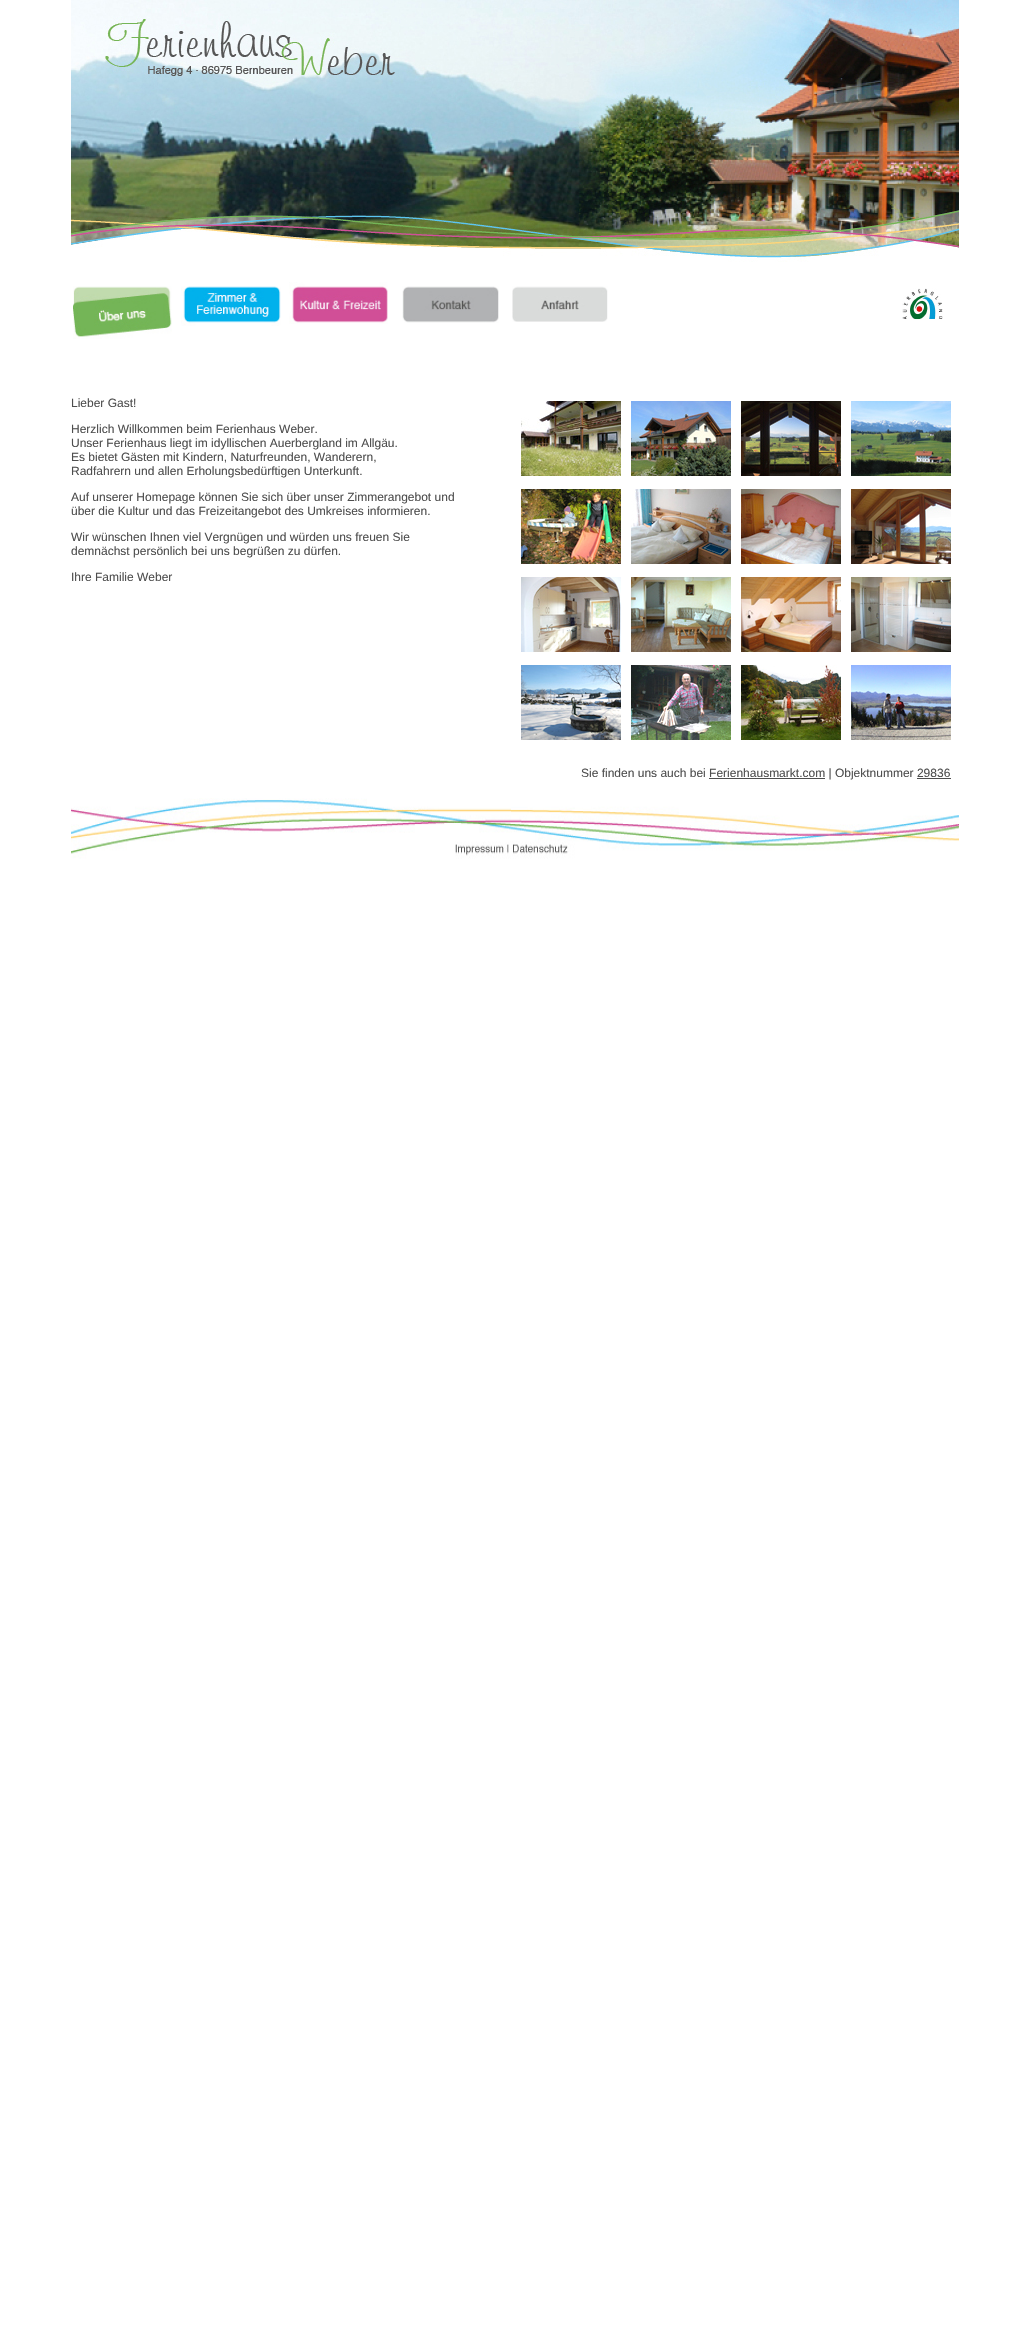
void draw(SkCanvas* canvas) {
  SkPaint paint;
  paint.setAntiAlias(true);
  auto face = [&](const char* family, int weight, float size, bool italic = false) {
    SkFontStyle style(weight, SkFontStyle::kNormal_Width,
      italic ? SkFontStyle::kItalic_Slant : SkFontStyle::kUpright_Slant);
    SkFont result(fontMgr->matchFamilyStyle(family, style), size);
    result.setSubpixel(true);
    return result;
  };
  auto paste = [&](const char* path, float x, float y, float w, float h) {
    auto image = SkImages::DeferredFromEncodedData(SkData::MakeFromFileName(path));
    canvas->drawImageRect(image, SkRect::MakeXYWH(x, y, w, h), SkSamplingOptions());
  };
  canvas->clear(0xffffffff);
  paste("img/1.png", 71, 0, 888, 262);
  paste("img/2.png", 73, 286, 99, 53);
  paste("img/3.png", 181, 286, 100, 40);
  paste("img/4.png", 289, 282, 99, 42);
  paste("img/5.png", 402, 286, 97, 37);
  paste("img/6.png", 512, 286, 96, 36);
  paste("img/7.png", 902, 288, 41, 32);
  paste("img/8.png", 521, 401, 100, 75);
  paste("img/9.png", 631, 401, 100, 75);
  paste("img/10.png", 741, 401, 100, 75);
  paste("img/11.png", 851, 401, 100, 75);
  paste("img/12.png", 521, 489, 100, 75);
  paste("img/13.png", 631, 489, 100, 75);
  paste("img/14.png", 741, 489, 100, 75);
  paste("img/15.png", 851, 489, 100, 75);
  paste("img/16.png", 521, 577, 100, 75);
  paste("img/17.png", 631, 577, 100, 75);
  paste("img/18.png", 741, 577, 100, 75);
  paste("img/19.png", 851, 577, 100, 75);
  paste("img/20.png", 521, 665, 100, 75);
  paste("img/21.png", 631, 665, 100, 75);
  paste("img/22.png", 741, 665, 100, 75);
  paste("img/23.png", 851, 665, 100, 75);
  paint.setColor(0xff4e4e4e);
  canvas->drawRect(SkRect::MakeXYWH(709, 778, 116, 1), paint);
  canvas->drawRect(SkRect::MakeXYWH(917, 778, 34, 1), paint);
  paste("img/24.png", 71, 798, 888, 61);
  auto f0 = face("Liberation Sans", 400, 12);
  {
    const struct { const char* s; float x, y; } items[] = {
      {"Lieber Gast!", 71, 407},
      {"Herzlich Willkommen beim Ferienhaus Weber.", 71, 433},
      {"Unser Ferienhaus liegt im idyllischen Auerbergland im Allgäu.", 71, 447},
      {"Es bietet Gästen mit Kindern, Naturfreunden, Wanderern,", 71, 461},
      {"Radfahrern und allen Erholungsbedürftigen Unterkunft.", 71, 475},
      {"Auf unserer Homepage können Sie sich über unser Zimmerangebot und", 71, 501},
      {"über die Kultur und das Freizeitangebot des Umkreises informieren.", 71, 515},
      {"Wir wünschen Ihnen viel Vergnügen und würden uns freuen Sie", 71, 541},
      {"demnächst persönlich bei uns begrüßen zu dürfen.", 71, 555},
      {"Ihre Familie Weber", 71, 581},
      {"Sie finden uns auch bei Ferienhausmarkt.com | Objektnummer 29836", 581, 777},
    };
    for (auto [s, x, y] : items) {
      canvas->drawString(s, x, y, f0, paint);
    }
  }
}
